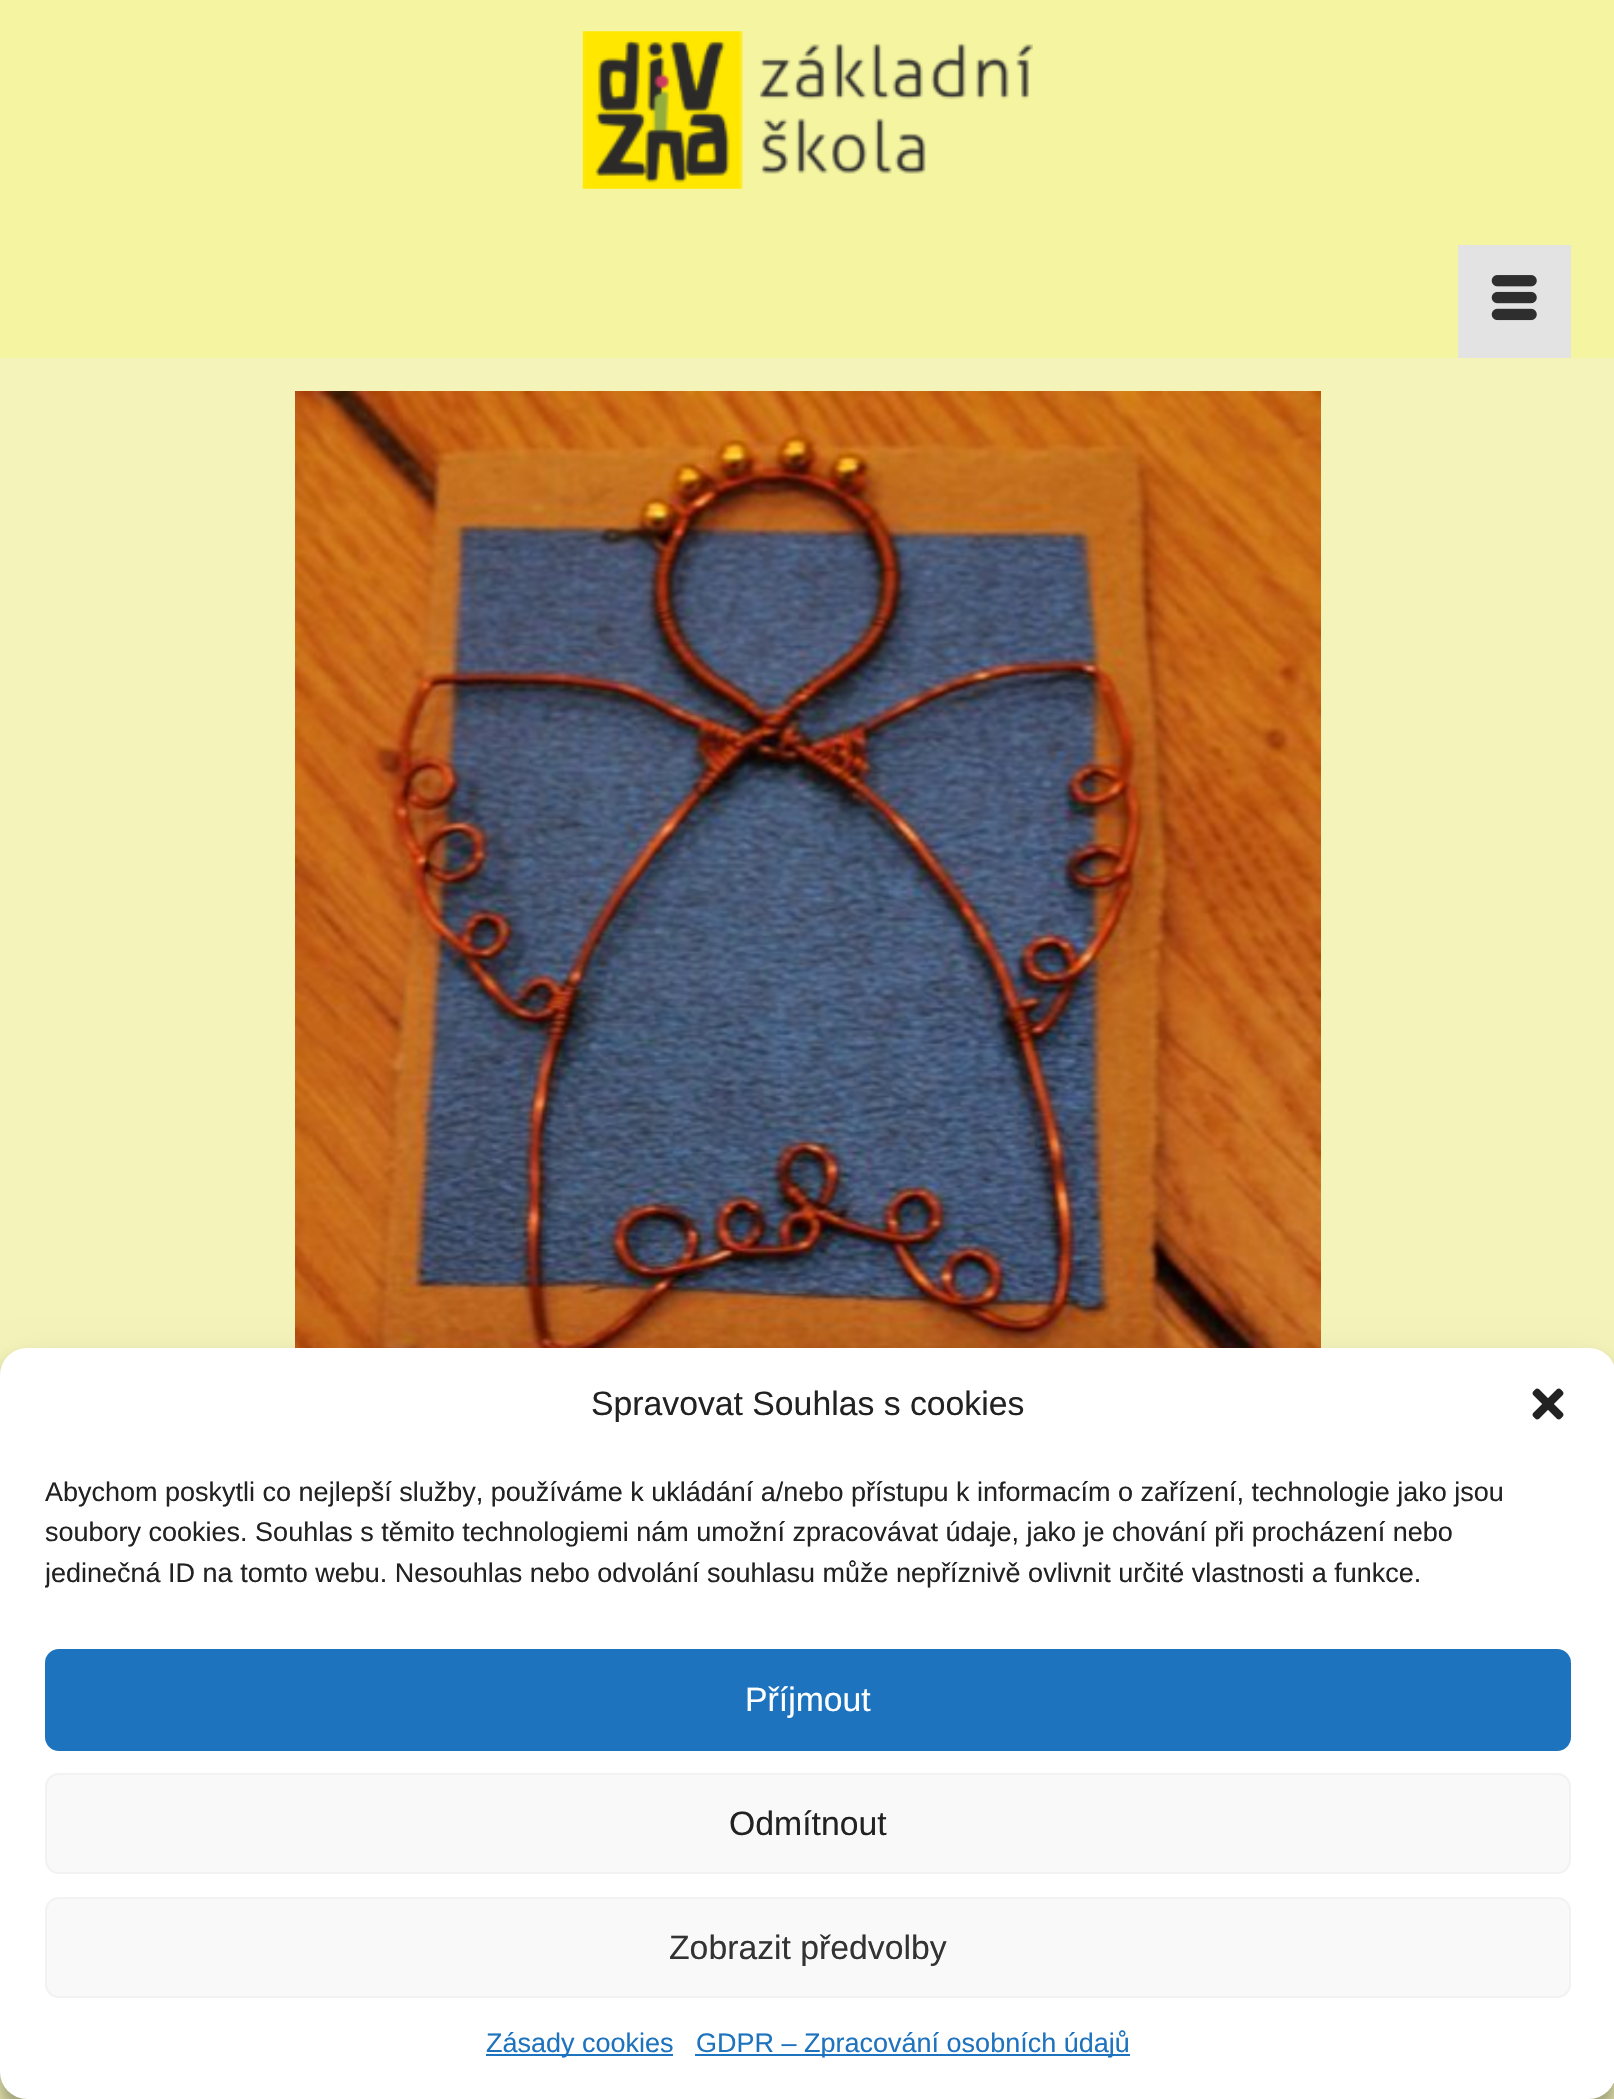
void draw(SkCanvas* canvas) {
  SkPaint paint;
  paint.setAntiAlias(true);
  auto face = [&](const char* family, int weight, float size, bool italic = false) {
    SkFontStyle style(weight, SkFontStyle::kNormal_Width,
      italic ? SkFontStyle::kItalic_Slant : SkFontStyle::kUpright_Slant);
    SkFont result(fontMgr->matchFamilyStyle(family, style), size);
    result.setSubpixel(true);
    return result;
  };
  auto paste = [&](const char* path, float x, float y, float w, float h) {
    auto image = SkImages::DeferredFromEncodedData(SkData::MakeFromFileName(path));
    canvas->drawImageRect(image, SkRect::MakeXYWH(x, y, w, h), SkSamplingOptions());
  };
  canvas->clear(0xfff4f4ba);
  paint.setColor(0xfff4f4a1);
  canvas->drawRect(SkRect::MakeXYWH(0, 0, 1614, 358), paint);
  paste("img/1.png", 582, 31, 451, 158);
  paint.setColor(0xffe3e3e3);
  canvas->drawRect(SkRect::MakeXYWH(1458, 245, 113, 113), paint);
  paste("img/2.png", 1491, 275, 46, 46);
  paste("img/3.png", 295, 391, 1026, 957);
  paint.setColor(0x3b000000);
  paint.setMaskFilter(SkMaskFilter::MakeBlur(kNormal_SkBlurStyle, 7));
  canvas->drawRoundRect(SkRect::MakeXYWH(0, 1361, 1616, 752), 27, 27, paint);
  paint.setMaskFilter(nullptr);
  paint.setColor(0x30000000);
  paint.setMaskFilter(SkMaskFilter::MakeBlur(kNormal_SkBlurStyle, 22.5f));
  canvas->drawRoundRect(SkRect::MakeXYWH(0, 1370, 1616, 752), 27, 27, paint);
  paint.setMaskFilter(nullptr);
  paint.setColor(0xffffffff);
  canvas->drawRoundRect(SkRect::MakeXYWH(0, 1348, 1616, 751), 27, 27, paint);
  paste("img/4.png", 1532, 1388, 32, 32);
  paint.setColor(0xff1e73be);
  canvas->drawRoundRect(SkRect::MakeXYWH(46, 1650, 1524, 100), 13, 13, paint);
  paint.setStroke(true);
  paint.setStrokeWidth(2);
  canvas->drawRoundRect(SkRect::MakeXYWH(46, 1650, 1524, 100), 13, 13, paint);
  paint.setStroke(false);
  paint.setColor(0xfff9f9f9);
  canvas->drawRoundRect(SkRect::MakeXYWH(46, 1774, 1524, 99), 13, 13, paint);
  paint.setStroke(true);
  paint.setColor(0xfff2f2f2);
  canvas->drawRoundRect(SkRect::MakeXYWH(46, 1774, 1524, 99), 13, 13, paint);
  paint.setStroke(false);
  paint.setColor(0xfff9f9f9);
  canvas->drawRoundRect(SkRect::MakeXYWH(46, 1898, 1524, 99), 13, 13, paint);
  paint.setStroke(true);
  paint.setColor(0xfff2f2f2);
  canvas->drawRoundRect(SkRect::MakeXYWH(46, 1898, 1524, 99), 13, 13, paint);
  paint.setStroke(false);
  paint.setColor(0xff1e73be);
  canvas->drawRect(SkRect::MakeXYWH(486, 2054, 187, 2), paint);
  canvas->drawRect(SkRect::MakeXYWH(695, 2054, 435, 2), paint);
  auto f0 = face("Liberation Sans", 400, 33.75f);
  paint.setColor(0xff222222);
  canvas->drawString("Spravovat Souhlas s cookies", 591, 1415, f0, paint);
  auto f1 = face("Liberation Sans", 400, 27);
  canvas->drawString("Abychom poskytli co nejlepší služby, používáme k ukládání a/nebo přístupu k informacím o zařízení, technologie jako jsou", 45, 1501, f1, paint);
  canvas->drawString("soubory cookies. Souhlas s těmito technologiemi nám umožní zpracovávat údaje, jako je chování při procházení nebo", 45, 1541, f1, paint);
  canvas->save();
  canvas->clipRect(SkRect::MakeXYWH(45, 1472, 1526, 132));
  canvas->drawString("jedinečná ID na tomto webu. Nesouhlas nebo odvolání souhlasu může nepříznivě ovlivnit určité vlastnosti a funkce.", 45, 1582, f1, paint);
  canvas->restore();
  paint.setColor(0xffffffff);
  canvas->drawString("Příjmout", 745, 1711, f0, paint);
  paint.setColor(0xff222222);
  canvas->drawString("Odmítnout", 729, 1835, f0, paint);
  paint.setColor(0xff333333);
  canvas->drawString("Zobrazit předvolby", 669, 1959, f0, paint);
  paint.setColor(0xff1e73be);
  canvas->drawString("Zásady cookies", 486, 2052, f1, paint);
  canvas->drawString("GDPR – Zpracování osobních údajů", 696, 2052, f1, paint);
}
